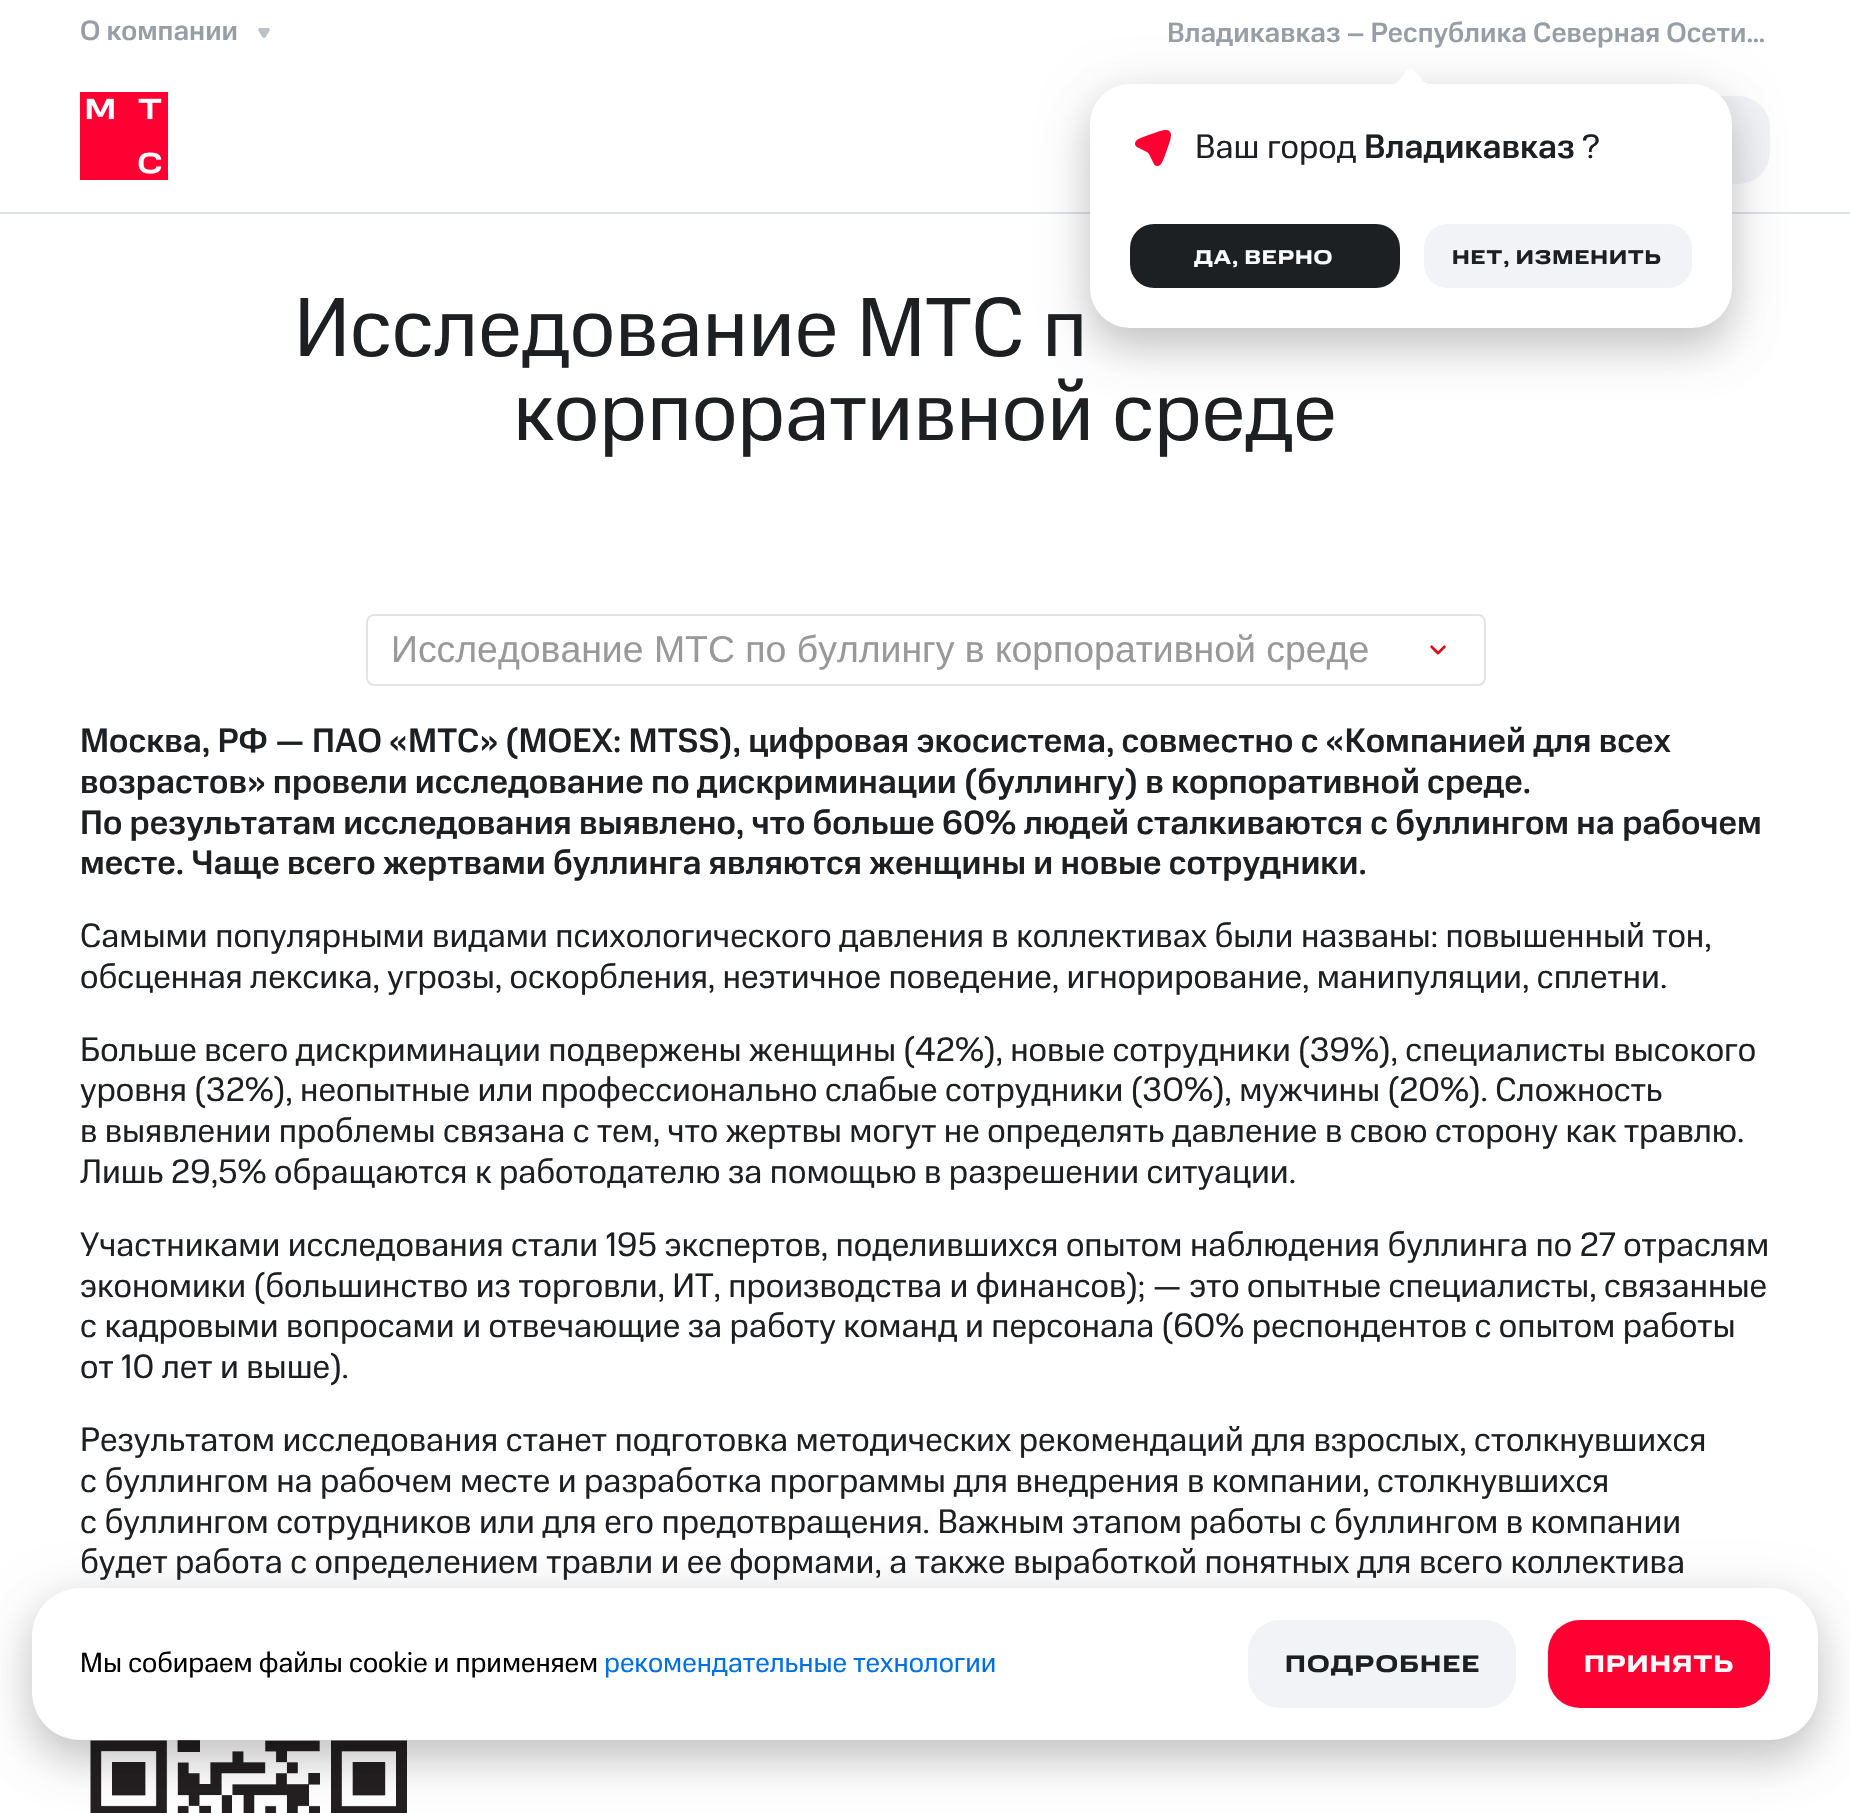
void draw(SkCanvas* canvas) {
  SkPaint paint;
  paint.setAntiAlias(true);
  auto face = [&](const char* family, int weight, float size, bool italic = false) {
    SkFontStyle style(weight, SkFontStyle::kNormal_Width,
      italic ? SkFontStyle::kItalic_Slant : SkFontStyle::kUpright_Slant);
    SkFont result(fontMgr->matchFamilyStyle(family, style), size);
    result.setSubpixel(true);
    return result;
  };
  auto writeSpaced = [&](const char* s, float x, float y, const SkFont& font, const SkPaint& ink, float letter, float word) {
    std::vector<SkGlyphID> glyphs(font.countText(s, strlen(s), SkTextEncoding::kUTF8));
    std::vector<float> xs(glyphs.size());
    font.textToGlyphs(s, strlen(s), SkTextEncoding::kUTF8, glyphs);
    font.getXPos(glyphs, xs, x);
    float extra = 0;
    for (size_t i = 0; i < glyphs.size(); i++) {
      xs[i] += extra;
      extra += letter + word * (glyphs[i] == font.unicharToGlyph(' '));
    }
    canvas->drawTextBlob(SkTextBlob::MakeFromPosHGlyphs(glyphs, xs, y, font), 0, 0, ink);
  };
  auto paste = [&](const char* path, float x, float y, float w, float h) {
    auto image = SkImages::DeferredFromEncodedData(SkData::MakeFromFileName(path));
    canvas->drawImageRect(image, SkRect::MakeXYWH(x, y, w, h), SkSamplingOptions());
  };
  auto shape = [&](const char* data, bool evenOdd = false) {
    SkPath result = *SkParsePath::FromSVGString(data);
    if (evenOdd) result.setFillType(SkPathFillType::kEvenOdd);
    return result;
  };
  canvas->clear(0xffffffff);
  paint.setColor(0xffdee1e8);
  canvas->drawRect(SkRect::MakeXYWH(0, 212, 1850, 2), paint);
  paste("img/1.png", 258, 28, 12, 10);
  paint.setColor(0xfff2f3f7);
  canvas->drawRoundRect(SkRect::MakeXYWH(1502, 96, 268, 88), 32, 32, paint);
  paint.setColor(0x1f000000);
  paint.setMaskFilter(SkMaskFilter::MakeBlur(kNormal_SkBlurStyle, 24));
  canvas->drawRoundRect(SkRect::MakeXYWH(1090, 92, 642, 244), 40, 40, paint);
  paint.setMaskFilter(nullptr);
  paint.setColor(0x24000000);
  paint.setMaskFilter(SkMaskFilter::MakeBlur(kNormal_SkBlurStyle, 20));
  canvas->drawRoundRect(SkRect::MakeXYWH(1090, 108, 642, 244), 40, 40, paint);
  paint.setMaskFilter(nullptr);
  paint.setColor(0xffffffff);
  canvas->drawPath(shape("M1411 68C1405.5 68 1400.5 84 1393 84H1429C1421.5 84 1416.5 68 1411 68Z", true), paint);
  canvas->drawRoundRect(SkRect::MakeXYWH(1090, 84, 642, 244), 40, 40, paint);
  paste("img/2.png", 1135, 130, 36, 36);
  paint.setColor(0xff1d2023);
  canvas->drawRoundRect(SkRect::MakeXYWH(1130, 224, 270, 64), 24, 24, paint);
  paint.setColor(0xfff2f3f7);
  canvas->drawRoundRect(SkRect::MakeXYWH(1424, 224, 268, 64), 24, 24, paint);
  paste("img/3.png", 80, 92, 88, 88);
  paint.setStroke(true);
  paint.setStrokeWidth(2);
  paint.setColor(0xffe4e4e4);
  canvas->drawRoundRect(SkRect::MakeXYWH(367, 615, 1118, 70), 7, 7, paint);
  paste("img/4.png", 1430, 645, 16, 10);
  paste("img/5.png", 90, 1740, 317, 73);
  paint.setStroke(false);
  paint.setColor(0x24000000);
  paint.setMaskFilter(SkMaskFilter::MakeBlur(kNormal_SkBlurStyle, 20));
  canvas->drawRoundRect(SkRect::MakeXYWH(32, 1612, 1786, 152), 48, 48, paint);
  paint.setMaskFilter(nullptr);
  paint.setColor(0x1f000000);
  paint.setMaskFilter(SkMaskFilter::MakeBlur(kNormal_SkBlurStyle, 24));
  canvas->drawRoundRect(SkRect::MakeXYWH(32, 1596, 1786, 152), 48, 48, paint);
  paint.setMaskFilter(nullptr);
  paint.setColor(0xffffffff);
  canvas->drawRoundRect(SkRect::MakeXYWH(32, 1588, 1786, 152), 48, 48, paint);
  paint.setColor(0xfff2f3f7);
  canvas->drawRoundRect(SkRect::MakeXYWH(1248, 1620, 268, 88), 32, 32, paint);
  paint.setColor(0xffff0032);
  canvas->drawRoundRect(SkRect::MakeXYWH(1548, 1620, 222, 88), 32, 32, paint);
  auto f0 = face("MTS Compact", 500, 28);
  paint.setColor(0xff969fa8);
  canvas->drawString("О компании", 80, 40, f0, paint);
  canvas->drawString("Владикавказ – Республика Северная Осети…", 1167, 42, f0, paint);
  auto f1 = face("MTS Compact", 400, 34);
  paint.setColor(0xff1d2023);
  canvas->drawString("Ваш город", 1195, 158, f1, paint);
  auto f2 = face("MTS Compact", 500, 34);
  canvas->drawString("Владикавказ", 1364, 158, f2, paint);
  canvas->drawString("?", 1582, 158, f1, paint);
  auto f3 = face("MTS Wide", 700, 20);
  paint.setColor(0xfffafafa);
  writeSpaced("ДА, ВЕРНО", 1194, 264, f3, paint, 1, 0);
  paint.setColor(0xff1d2023);
  writeSpaced("НЕТ, ИЗМЕНИТЬ", 1452, 264, f3, paint, 1, 0);
  auto f4 = face("MTS Compact", 400, 84);
  canvas->drawString("Исследование МТС п", 294, 356, f4, paint);
  canvas->drawString("корпоративной среде", 513, 440, f4, paint);
  auto f5 = face("Liberation Sans", 400, 37.4f);
  paint.setColor(0xff999999);
  canvas->drawString("Исследование МТС по буллингу в корпоративной среде", 391, 662, f5, paint);
  paint.setColor(0xff1d2023);
  {
    const struct { const char* s; float x, y; } items[] = {
      {"Москва, РФ — ПАО «МТС» (MOEX: MTSS), цифровая экосистема, совместно с «Компанией для всех", 80, 752},
      {"возрастов» провели исследование по дискриминации (буллингу) в корпоративной среде.", 80, 793},
      {"По результатам исследования выявлено, что больше 60% людей сталкиваются с буллингом на рабочем", 80, 834},
      {"месте. Чаще всего жертвами буллинга являются женщины и новые сотрудники.", 80, 874},
    };
    for (auto [s, x, y] : items) {
      canvas->drawString(s, x, y, f2, paint);
    }
  }
  {
    const struct { const char* s; float x, y; } items[] = {
      {"Самыми популярными видами психологического давления в коллективах были названы: повышенный тон,", 80, 947},
      {"обсценная лексика, угрозы, оскорбления, неэтичное поведение, игнорирование, манипуляции, сплетни.", 80, 988},
      {"Больше всего дискриминации подвержены женщины (42%), новые сотрудники (39%), специалисты высокого", 80, 1061},
      {"уровня (32%), неопытные или профессионально слабые сотрудники (30%), мужчины (20%). Сложность", 80, 1101},
      {"в выявлении проблемы связана с тем, что жертвы могут не определять давление в свою сторону как травлю.", 80, 1142},
      {"Лишь 29,5% обращаются к работодателю за помощью в разрешении ситуации.", 80, 1183},
      {"Участниками исследования стали 195 экспертов, поделившихся опытом наблюдения буллинга по 27 отраслям", 80, 1256},
      {"экономики (большинство из торговли, ИТ, производства и финансов); — это опытные специалисты, связанные", 80, 1297},
      {"с кадровыми вопросами и отвечающие за работу команд и персонала (60% респондентов с опытом работы", 80, 1337},
      {"от 10 лет и выше).", 80, 1378},
      {"Результатом исследования станет подготовка методических рекомендаций для взрослых, столкнувшихся", 80, 1451},
      {"с буллингом на рабочем месте и разработка программы для внедрения в компании, столкнувшихся", 80, 1492},
      {"с буллингом сотрудников или для его предотвращения. Важным этапом работы с буллингом в компании", 80, 1533},
      {"будет работа с определением травли и ее формами, а также выработкой понятных для всего коллектива", 80, 1573},
    };
    for (auto [s, x, y] : items) {
      canvas->drawString(s, x, y, f1, paint);
    }
  }
  auto f6 = face("MTS Compact", 400, 28);
  paint.setColor(0xff000000);
  canvas->drawString("Мы собираем файлы cookie и применяем", 80, 1672, f6, paint);
  paint.setColor(0xff0070e5);
  canvas->drawString("рекомендательные технологии", 604, 1672, f6, paint);
  auto f7 = face("MTS Wide", 700, 24);
  paint.setColor(0xff1d2023);
  writeSpaced("ПОДРОБНЕЕ", 1285, 1672, f7, paint, 1.25f, 0);
  paint.setColor(0xfffafafa);
  writeSpaced("ПРИНЯТЬ", 1584, 1672, f7, paint, 1.25f, 0);
}
